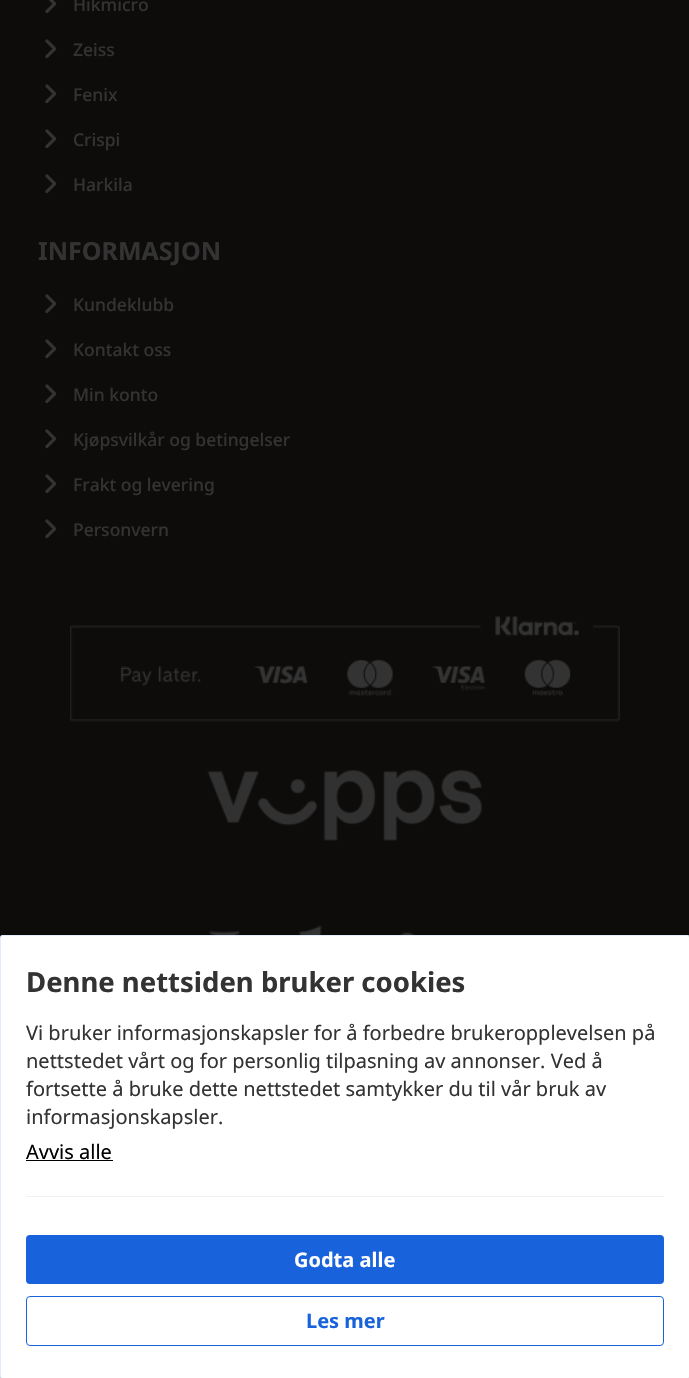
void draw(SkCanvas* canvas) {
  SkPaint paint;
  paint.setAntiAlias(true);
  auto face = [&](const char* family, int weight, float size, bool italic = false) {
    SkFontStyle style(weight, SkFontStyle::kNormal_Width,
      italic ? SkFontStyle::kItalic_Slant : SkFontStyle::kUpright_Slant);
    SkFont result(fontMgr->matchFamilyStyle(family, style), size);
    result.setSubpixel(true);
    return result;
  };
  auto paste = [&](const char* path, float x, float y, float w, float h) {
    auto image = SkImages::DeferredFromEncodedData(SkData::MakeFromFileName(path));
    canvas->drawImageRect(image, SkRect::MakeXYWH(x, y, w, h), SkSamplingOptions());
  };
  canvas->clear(0xff0e0c0a);
  paste("img/1.png", 45, 0, 12, 14);
  paste("img/2.png", 45, 39, 12, 20);
  paste("img/2.png", 45, 84, 12, 20);
  paste("img/2.png", 45, 129, 12, 20);
  paste("img/2.png", 45, 174, 12, 20);
  paste("img/2.png", 45, 294, 12, 20);
  paste("img/2.png", 45, 339, 12, 20);
  paste("img/2.png", 45, 384, 12, 20);
  paste("img/2.png", 45, 429, 12, 20);
  paste("img/2.png", 45, 474, 12, 20);
  paste("img/2.png", 45, 519, 12, 20);
  paste("img/3.png", 70, 616, 550, 106);
  paste("img/4.png", 207, 769, 276, 72);
  paste("img/5.png", 208, 925, 207, 10);
  paint.setColor(0xffffffff);
  canvas->drawRoundRect(SkRect::MakeXYWH(0, 935, 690, 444), 2.5f, 2.5f, paint);
  paint.setStroke(true);
  paint.setStrokeWidth(1);
  paint.setColor(0x1f1863dc);
  canvas->drawRoundRect(SkRect::MakeXYWH(0.5f, 935.5f, 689, 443), 2, 2, paint);
  paint.setStroke(false);
  paint.setColor(0xff000000);
  canvas->drawRect(SkRect::MakeXYWH(26, 1160, 87, 1), paint);
  paint.setColor(0xfff0f0f0);
  canvas->drawRect(SkRect::MakeXYWH(26, 1196, 638, 1), paint);
  paint.setColor(0xff1863dc);
  canvas->drawRoundRect(SkRect::MakeXYWH(26, 1235, 638, 49), 4, 4, paint);
  paint.setStroke(true);
  canvas->drawRoundRect(SkRect::MakeXYWH(26.5f, 1296.5f, 637, 49), 3.5f, 3.5f, paint);
  auto f0 = face("Noto Sans", 500, 17.5f);
  paint.setStroke(false);
  paint.setColor(0xff333333);
  {
    const struct { const char* s; float x, y; } items[] = {
      {"Hikmicro", 73, 11},
      {"Zeiss", 73, 56},
      {"Fenix", 73, 101},
      {"Crispi", 73, 146},
      {"Harkila", 73, 191},
    };
    for (auto [s, x, y] : items) {
      canvas->drawString(s, x, y, f0, paint);
    }
  }
  auto f1 = face("Noto Sans", 700, 25);
  canvas->drawString("INFORMASJON", 38, 260, f1, paint);
  {
    const struct { const char* s; float x, y; } items[] = {
      {"Kundeklubb", 73, 311},
      {"Kontakt oss", 73, 356},
      {"Min konto", 73, 401},
      {"Kjøpsvilkår og betingelser", 73, 446},
      {"Frakt og levering", 73, 491},
      {"Personvern", 73, 536},
    };
    for (auto [s, x, y] : items) {
      canvas->drawString(s, x, y, f0, paint);
    }
  }
  auto f2 = face("Noto Sans", 700, 27.5f);
  canvas->drawString("Denne nettsiden bruker cookies", 26, 992, f2, paint);
  auto f3 = face("Noto Sans", 400, 20);
  {
    const struct { const char* s; float x, y; } items[] = {
      {"Vi bruker informasjonskapsler for å forbedre brukeropplevelsen på", 26, 1040},
      {"nettstedet vårt og for personlig tilpasning av annonser. Ved å", 26, 1068},
      {"fortsette å bruke dette nettstedet samtykker du til vår bruk av", 26, 1096},
      {"informasjonskapsler.", 26, 1124},
    };
    for (auto [s, x, y] : items) {
      canvas->drawString(s, x, y, f3, paint);
    }
  }
  paint.setColor(0xff000000);
  canvas->drawString("Avvis alle", 26, 1159, f3, paint);
  auto f4 = face("Noto Sans", 700, 20);
  paint.setColor(0xffffffff);
  canvas->drawString("Godta alle", 294, 1267, f4, paint);
  paint.setColor(0xff1863dc);
  canvas->drawString("Les mer", 306, 1328, f4, paint);
}
